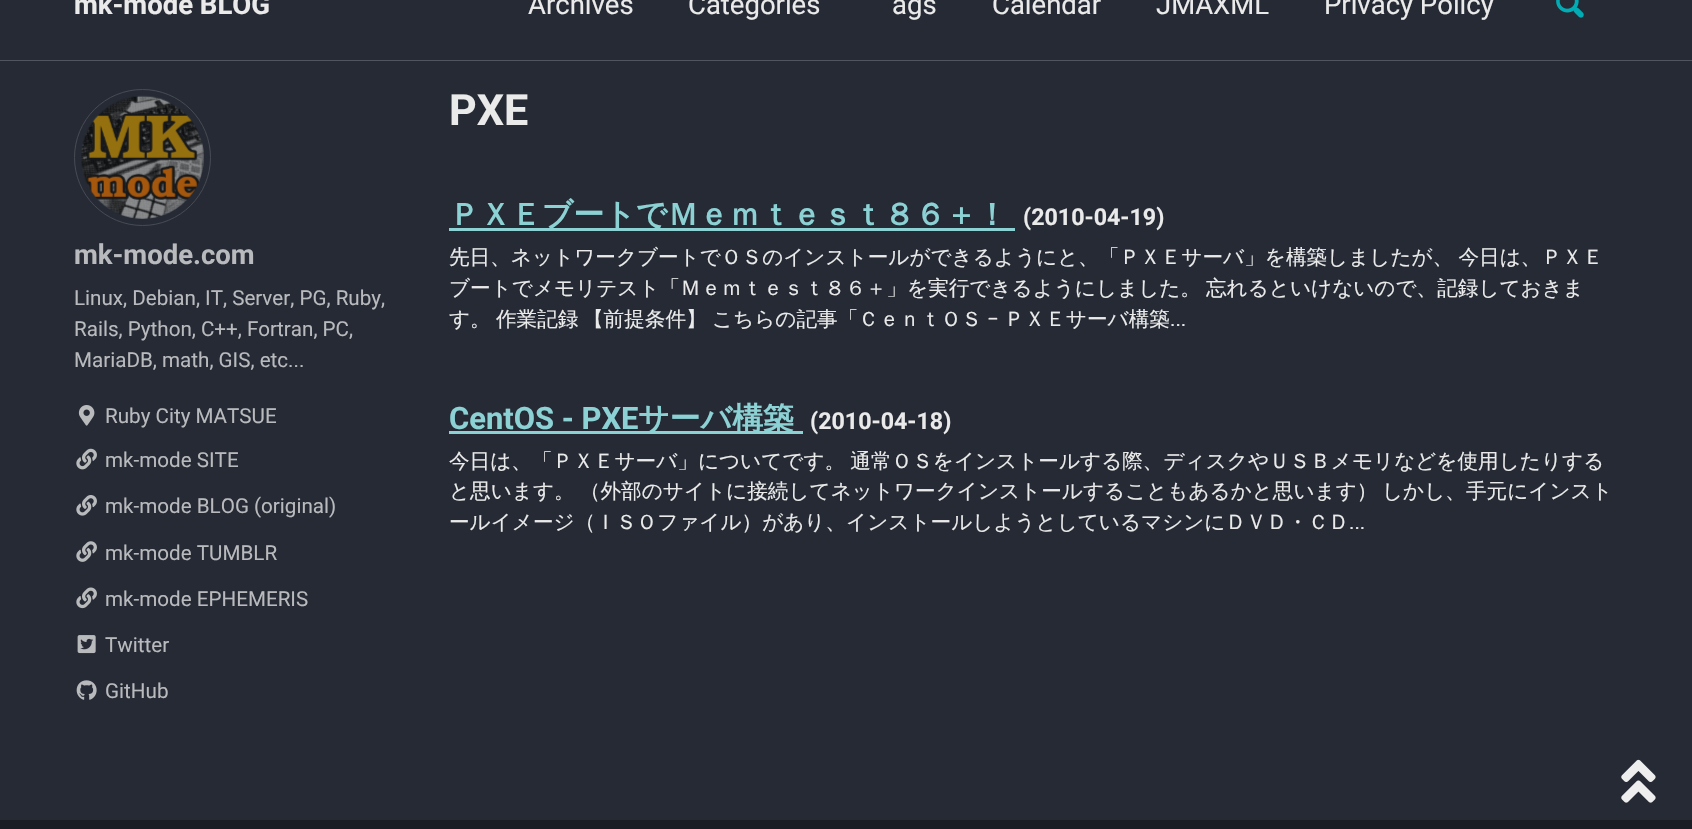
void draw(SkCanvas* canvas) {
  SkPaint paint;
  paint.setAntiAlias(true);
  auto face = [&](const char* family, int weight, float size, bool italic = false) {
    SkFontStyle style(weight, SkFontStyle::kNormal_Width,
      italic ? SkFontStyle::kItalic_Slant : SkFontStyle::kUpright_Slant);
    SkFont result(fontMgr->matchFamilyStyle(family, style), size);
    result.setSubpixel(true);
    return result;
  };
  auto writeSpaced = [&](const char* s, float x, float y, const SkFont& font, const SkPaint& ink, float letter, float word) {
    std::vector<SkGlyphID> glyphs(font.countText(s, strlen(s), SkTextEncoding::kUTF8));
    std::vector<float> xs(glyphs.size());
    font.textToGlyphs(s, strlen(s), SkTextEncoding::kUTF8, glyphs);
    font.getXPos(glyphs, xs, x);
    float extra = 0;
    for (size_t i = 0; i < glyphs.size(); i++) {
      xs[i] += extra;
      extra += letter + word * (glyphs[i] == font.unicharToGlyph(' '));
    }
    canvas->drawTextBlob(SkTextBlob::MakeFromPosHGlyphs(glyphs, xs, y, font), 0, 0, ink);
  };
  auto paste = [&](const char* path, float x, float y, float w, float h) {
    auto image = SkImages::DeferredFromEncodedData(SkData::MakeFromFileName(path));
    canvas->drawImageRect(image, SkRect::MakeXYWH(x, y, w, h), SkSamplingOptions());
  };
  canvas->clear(0xff252a34);
  paint.setColor(0xff51555d);
  canvas->drawRect(SkRect::MakeXYWH(0, 60, 1692, 1), paint);
  paste("img/1.png", 1556, 0, 28, 18);
  paint.setStroke(true);
  paint.setStrokeWidth(1);
  paint.setColor(0xff464a53);
  canvas->drawCircle(142.5f, 157.5f, 68, paint);
  paste("img/2.png", 81, 95, 123, 124);
  paste("img/3.png", 78, 405, 17, 21);
  paste("img/4.png", 76, 448, 21, 22);
  paste("img/5.png", 76, 495, 21, 21);
  paste("img/6.png", 76, 541, 21, 21);
  paste("img/7.png", 76, 587, 21, 22);
  paste("img/8.png", 77, 635, 19, 19);
  paste("img/9.png", 76, 680, 21, 20);
  paint.setStroke(false);
  {
    const struct { float x, y, w, h; SkColor color; } items[] = {
      {449, 228, 566, 3, 0xff8cd2d5},
      {449, 431, 354, 3, 0xff8cd2d5},
      {0, 820, 1692, 9, 0xff1a1d24},
    };
    for (auto [x, y, w, h, color] : items) {
      paint.setColor(color);
      canvas->drawRect(SkRect::MakeXYWH(x, y, w, h), paint);
    }
  }
  paste("img/10.png", 1621, 759, 35, 44);
  auto f0 = face("Roboto", 700, 27.5f);
  paint.setColor(0xffeaeaea);
  canvas->drawString("mk-mode BLOG", 74, 14, f0, paint);
  auto f1 = face("Roboto", 400, 27.5f);
  {
    const struct { const char* s; float x, y; } items[] = {
      {"Archives", 528, 14},
      {"Categories", 688, 14},
      {"ags", 892, 14},
      {"Calendar", 992, 14},
      {"JMAXML", 1156, 14},
      {"Privacy Policy", 1324, 14},
    };
    for (auto [s, x, y] : items) {
      canvas->drawString(s, x, y, f1, paint);
    }
  }
  paint.setColor(0xffb9babd);
  canvas->drawString("mk-mode.com", 74, 264, f0, paint);
  auto f2 = face("Roboto", 400, 20.62f);
  {
    const struct { const char* s; float x, y; } items[] = {
      {"Linux, Debian, IT, Server, PG, Ruby,", 74, 305},
      {"Rails, Python, C++, Fortran, PC,", 74, 336},
      {"MariaDB, math, GIS, etc...", 74, 367},
      {"Ruby City MATSUE", 105, 423},
      {"mk-mode SITE", 105, 467},
      {"mk-mode BLOG (original)", 105, 513},
      {"mk-mode TUMBLR", 105, 560},
      {"mk-mode EPHEMERIS", 105, 606},
      {"Twitter", 105, 652},
      {"GitHub", 105, 698},
    };
    for (auto [s, x, y] : items) {
      canvas->drawString(s, x, y, f2, paint);
    }
  }
  auto f3 = face("Roboto", 700, 43);
  paint.setColor(0xffeaeaea);
  canvas->drawString("PXE", 449, 125, f3, paint);
  auto f4 = face("WenQuanYi Zen Hei", 700, 30.9f);
  paint.setColor(0xff8cd2d5);
  canvas->drawString("ＰＸＥブートでＭｅｍｔｅｓｔ８６＋！", 449, 225, f4, paint);
  auto f5 = face("Roboto", 700, 23.25f);
  paint.setColor(0xffeaeaea);
  canvas->drawString("(2010-04-19)", 1023, 225, f5, paint);
  auto f6 = face("WenQuanYi Zen Hei", 500, 20.62f);
  writeSpaced("先日、ネットワークブートでＯＳのインストールができるようにと、「ＰＸＥサーバ」を構築しましたが、 今日は、ＰＸＥ", 449, 264, f6, paint, 0, -1);
  {
    const struct { const char* s; float x, y; } items[] = {
      {"ブートでメモリテスト「Ｍｅｍｔｅｓｔ８６＋」を実行できるようにしました。", 449, 295},
      {"忘れるといけないので、記録しておきま", 1206, 295},
      {"す。", 449, 326},
      {"作業記録", 496, 326},
      {"【前提条件】", 583, 326},
      {"こちらの記事「ＣｅｎｔＯＳ", 712, 326},
    };
    for (auto [s, x, y] : items) {
      canvas->drawString(s, x, y, f6, paint);
    }
  }
  canvas->drawString("−", 987, 326, f2, paint);
  canvas->drawString("ＰＸＥサーバ構築", 1004, 326, f6, paint);
  canvas->drawString("...", 1170, 326, f2, paint);
  auto f7 = face("Roboto", 700, 30.9f);
  paint.setColor(0xff8cd2d5);
  canvas->drawString("CentOS - PXE", 449, 429, f7, paint);
  canvas->drawString("サーバ構築", 638, 429, f4, paint);
  paint.setColor(0xffeaeaea);
  canvas->drawString("(2010-04-18)", 810, 429, f5, paint);
  writeSpaced("今日は、「ＰＸＥサーバ」についてです。 通常ＯＳをインストールする際、ディスクやＵＳＢメモリなどを使用したりする", 449, 468, f6, paint, 0, -1);
  writeSpaced("と思います。 （外部のサイトに接続してネットワークインストールすることもあるかと思います）", 449, 498, f6, paint, 0, -1);
  canvas->drawString("しかし、手元にインスト", 1382, 498, f6, paint);
  canvas->drawString("ールイメージ（ＩＳＯファイル）があり、インストールしようとしているマシンにＤＶＤ・ＣＤ", 449, 529, f6, paint);
  canvas->drawString("...", 1349, 529, f2, paint);
}
